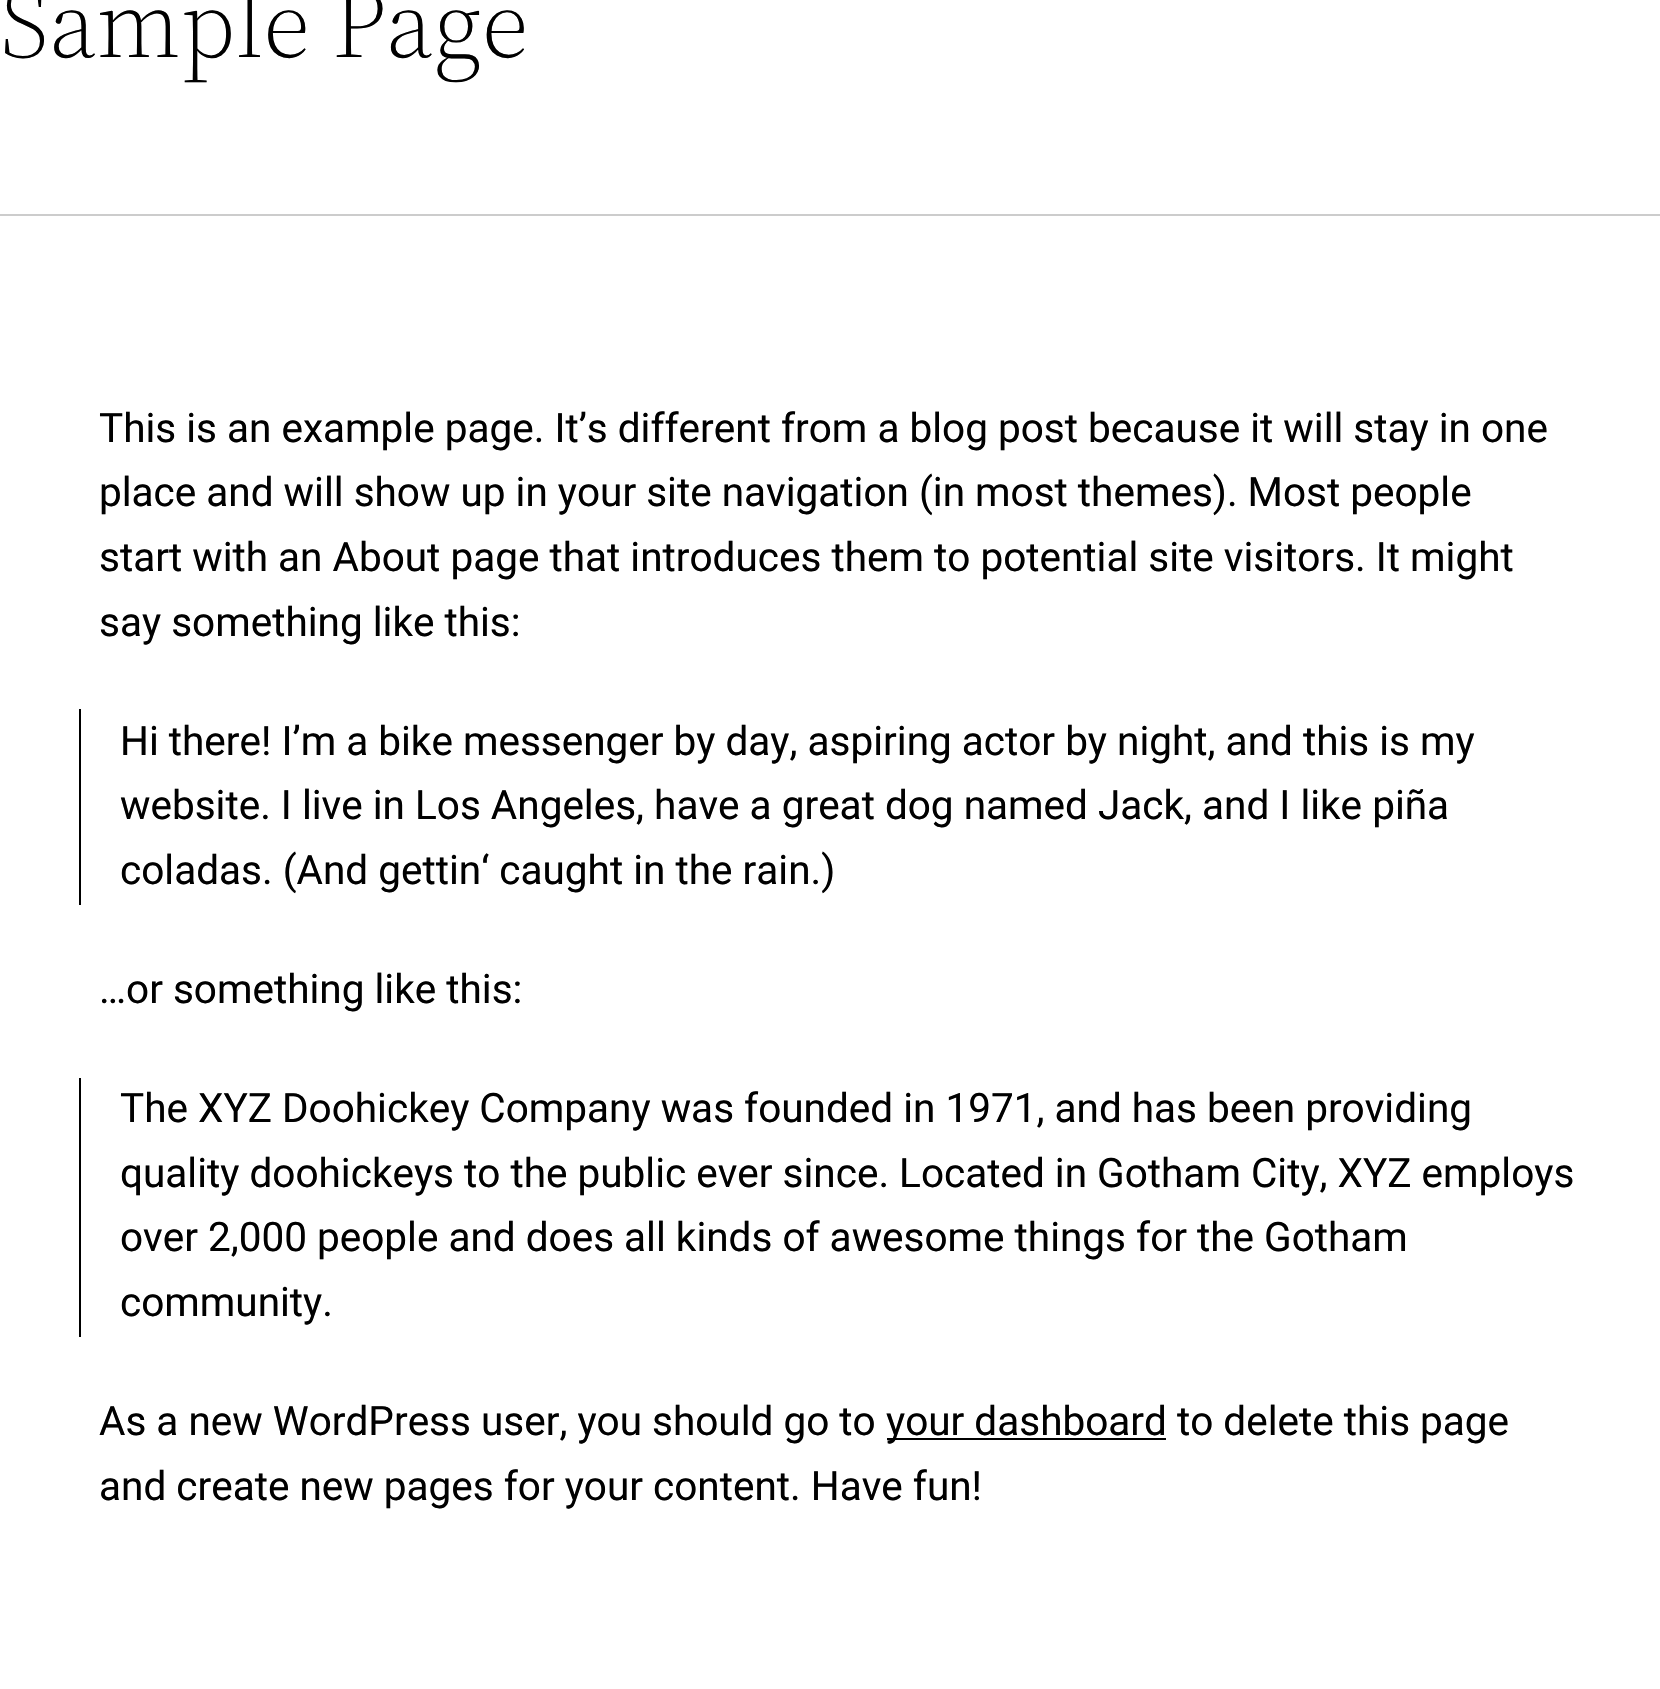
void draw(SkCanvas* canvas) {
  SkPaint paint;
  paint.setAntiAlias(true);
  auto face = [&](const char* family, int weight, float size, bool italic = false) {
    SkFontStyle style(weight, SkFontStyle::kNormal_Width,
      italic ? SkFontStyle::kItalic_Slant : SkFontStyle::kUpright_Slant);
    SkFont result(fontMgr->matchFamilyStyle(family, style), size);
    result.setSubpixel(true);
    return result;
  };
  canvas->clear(0xffffffff);
  {
    const struct { float x, y, w, h; SkColor color; } items[] = {
      {0, 214, 1660, 2, 0xffcccccc},
      {79, 709, 2, 196, 0xff000000},
      {79, 1078, 2, 259, 0xff000000},
      {887, 1438, 279, 2, 0xff000000},
    };
    for (auto [x, y, w, h, color] : items) {
      paint.setColor(color);
      canvas->drawRect(SkRect::MakeXYWH(x, y, w, h), paint);
    }
  }
  auto f0 = face("Source Serif 4", 300, 99.5f);
  canvas->drawString("Sample Page", 0, 57, f0, paint);
  auto f1 = face("Roboto", 400, 40.5f);
  {
    const struct { const char* s; float x, y; } items[] = {
      {"This is an example page. It’s different from a blog post because it will stay in one", 99, 442},
      {"place and will show up in your site navigation (in most themes). Most people", 99, 506},
      {"start with an About page that introduces them to potential site visitors. It might", 99, 571},
      {"say something like this:", 99, 636},
      {"Hi there! I’m a bike messenger by day, aspiring actor by night, and this is my", 120, 755},
      {"website. I live in Los Angeles, have a great dog named Jack, and I like piña", 120, 819},
      {"coladas. (And gettin‘ caught in the rain.)", 120, 884},
      {"…or something like this:", 99, 1003},
      {"The XYZ Doohickey Company was founded in 1971, and has been providing", 120, 1122},
      {"quality doohickeys to the public ever since. Located in Gotham City, XYZ employs", 120, 1187},
      {"over 2,000 people and does all kinds of awesome things for the Gotham", 120, 1251},
      {"community.", 120, 1316},
      {"As a new WordPress user, you should go to", 99, 1435},
      {"your dashboard to delete this page", 886, 1435},
      {"and create new pages for your content. Have fun!", 99, 1500},
    };
    for (auto [s, x, y] : items) {
      canvas->drawString(s, x, y, f1, paint);
    }
  }
}
